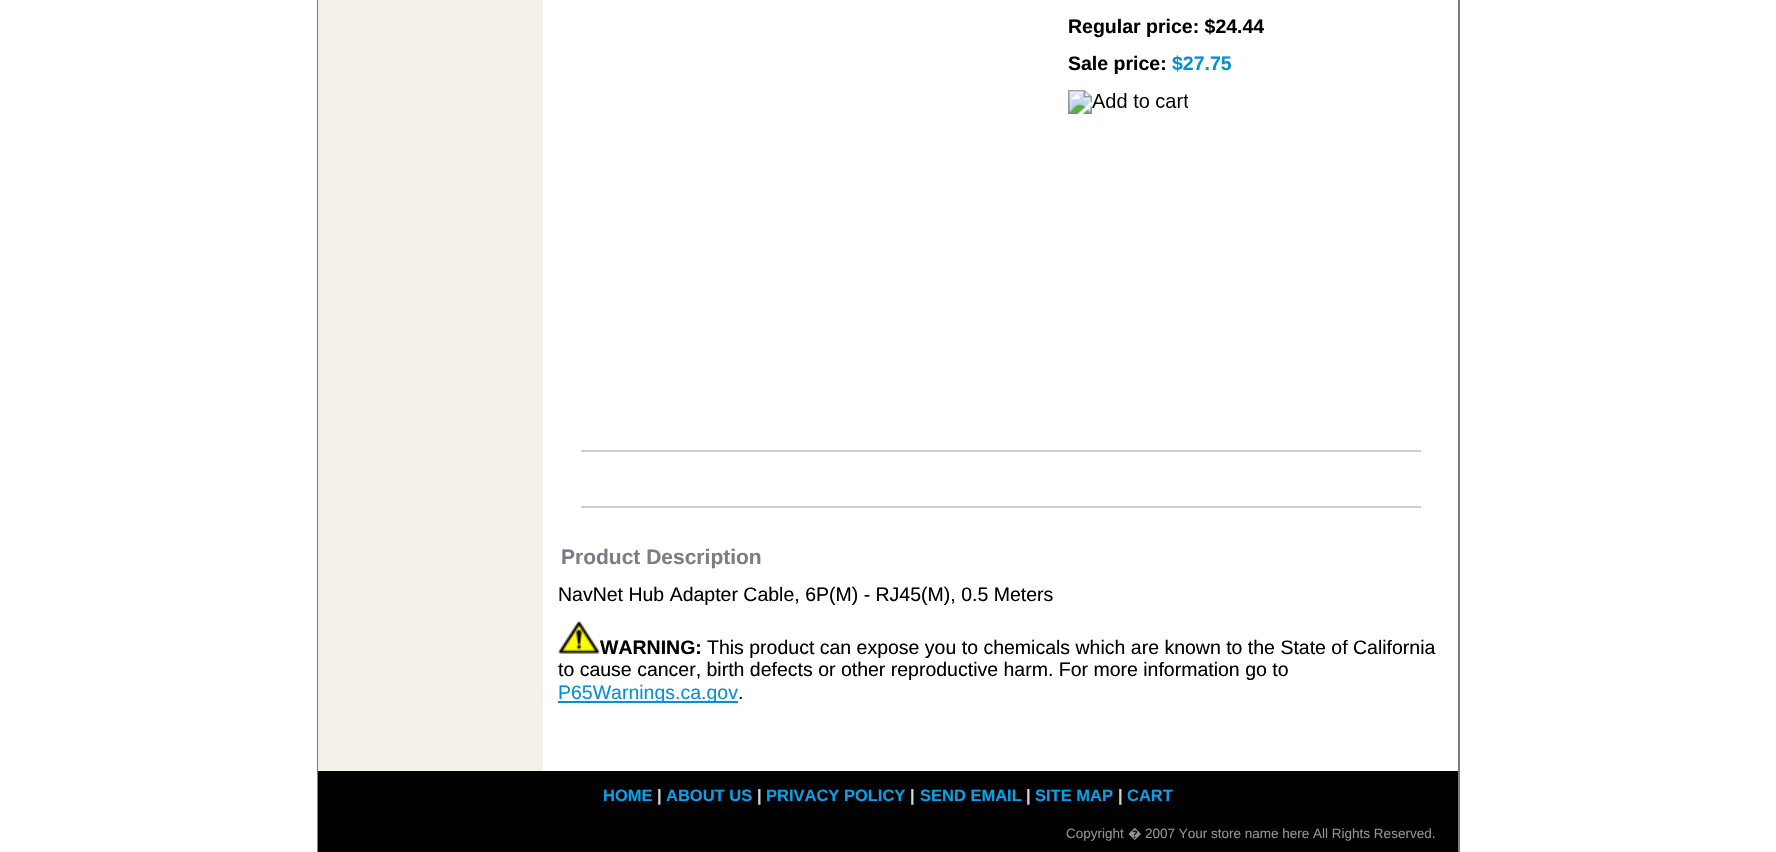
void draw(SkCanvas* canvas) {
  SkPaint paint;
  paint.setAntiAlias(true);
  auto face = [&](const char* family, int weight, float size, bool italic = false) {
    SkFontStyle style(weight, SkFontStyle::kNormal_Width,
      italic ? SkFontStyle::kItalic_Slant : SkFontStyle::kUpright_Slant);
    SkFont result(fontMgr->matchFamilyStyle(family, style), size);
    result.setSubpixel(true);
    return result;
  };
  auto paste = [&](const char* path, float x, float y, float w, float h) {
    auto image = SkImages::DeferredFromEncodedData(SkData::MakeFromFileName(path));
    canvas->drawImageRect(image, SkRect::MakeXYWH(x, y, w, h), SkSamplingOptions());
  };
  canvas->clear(0xffffffff);
  paint.setStroke(true);
  paint.setStrokeWidth(2);
  paint.setColor(0xff777e85);
  canvas->drawRect(SkRect::MakeXYWH(318, -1, 1141, 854), paint);
  paint.setStroke(false);
  paint.setColor(0xfff2f0e7);
  canvas->drawRect(SkRect::MakeXYWH(318, 0, 225, 771), paint);
  paste("img/1.png", 1068, 90, 120, 24);
  paint.setColor(0xffcfcece);
  canvas->drawRect(SkRect::MakeXYWH(581, 450, 840, 2), paint);
  canvas->drawRect(SkRect::MakeXYWH(581, 506, 840, 2), paint);
  paste("img/2.png", 558, 621, 42, 33);
  paint.setColor(0xff0591d2);
  canvas->drawRect(SkRect::MakeXYWH(558, 701, 180, 2), paint);
  paint.setColor(0xff000000);
  canvas->drawRect(SkRect::MakeXYWH(318, 771, 1140, 81), paint);
  auto f0 = face("Liberation Sans", 700, 19.5f);
  canvas->drawString("Regular price: $24.44", 1068, 33, f0, paint);
  canvas->drawString("Sale price:", 1068, 70, f0, paint);
  paint.setColor(0xff0591d2);
  canvas->drawString("$27.75", 1172, 70, f0, paint);
  auto f1 = face("Liberation Sans", 700, 21);
  paint.setColor(0xff777e85);
  canvas->drawString("Product Description", 561, 564, f1, paint);
  auto f2 = face("Liberation Sans", 400, 19.5f);
  paint.setColor(0xff000000);
  canvas->drawString("NavNet Hub Adapter Cable, 6P(M) - RJ45(M), 0.5 Meters", 558, 601, f2, paint);
  canvas->drawString("WARNING:", 600, 654, f0, paint);
  canvas->drawString("This product can expose you to chemicals which are known to the State of California", 707, 654, f2, paint);
  canvas->drawString("to cause cancer, birth defects or other reproductive harm. For more information go to", 558, 676, f2, paint);
  paint.setColor(0xff0591d2);
  canvas->drawString("P65Warnings.ca.gov", 558, 699, f2, paint);
  paint.setColor(0xff000000);
  canvas->drawString(".", 738, 699, f2, paint);
  auto f3 = face("Liberation Sans", 700, 16.5f);
  paint.setColor(0xff05a2eb);
  canvas->drawString("HOME", 603, 801, f3, paint);
  paint.setColor(0xffd3d3d3);
  canvas->drawString("|", 657, 801, f3, paint);
  paint.setColor(0xff05a2eb);
  canvas->drawString("ABOUT US", 666, 801, f3, paint);
  paint.setColor(0xffd3d3d3);
  canvas->drawString("|", 757, 801, f3, paint);
  paint.setColor(0xff05a2eb);
  canvas->drawString("PRIVACY POLICY", 766, 801, f3, paint);
  paint.setColor(0xffd3d3d3);
  canvas->drawString("|", 910, 801, f3, paint);
  paint.setColor(0xff05a2eb);
  canvas->drawString("SEND EMAIL", 920, 801, f3, paint);
  paint.setColor(0xffd3d3d3);
  canvas->drawString("|", 1026, 801, f3, paint);
  paint.setColor(0xff05a2eb);
  canvas->drawString("SITE MAP", 1035, 801, f3, paint);
  paint.setColor(0xffd3d3d3);
  canvas->drawString("|", 1118, 801, f3, paint);
  paint.setColor(0xff05a2eb);
  canvas->drawString("CART", 1127, 801, f3, paint);
  auto f4 = face("Liberation Sans", 400, 13.5f);
  paint.setColor(0xff939393);
  canvas->drawString("Copyright", 1066, 838, f4, paint);
  auto f5 = face("Noto Sans", 400, 13.5f);
  canvas->drawString("�", 1128, 838, f5, paint);
  canvas->drawString("2007 Your store name here All Rights Reserved.", 1145, 838, f4, paint);
}
